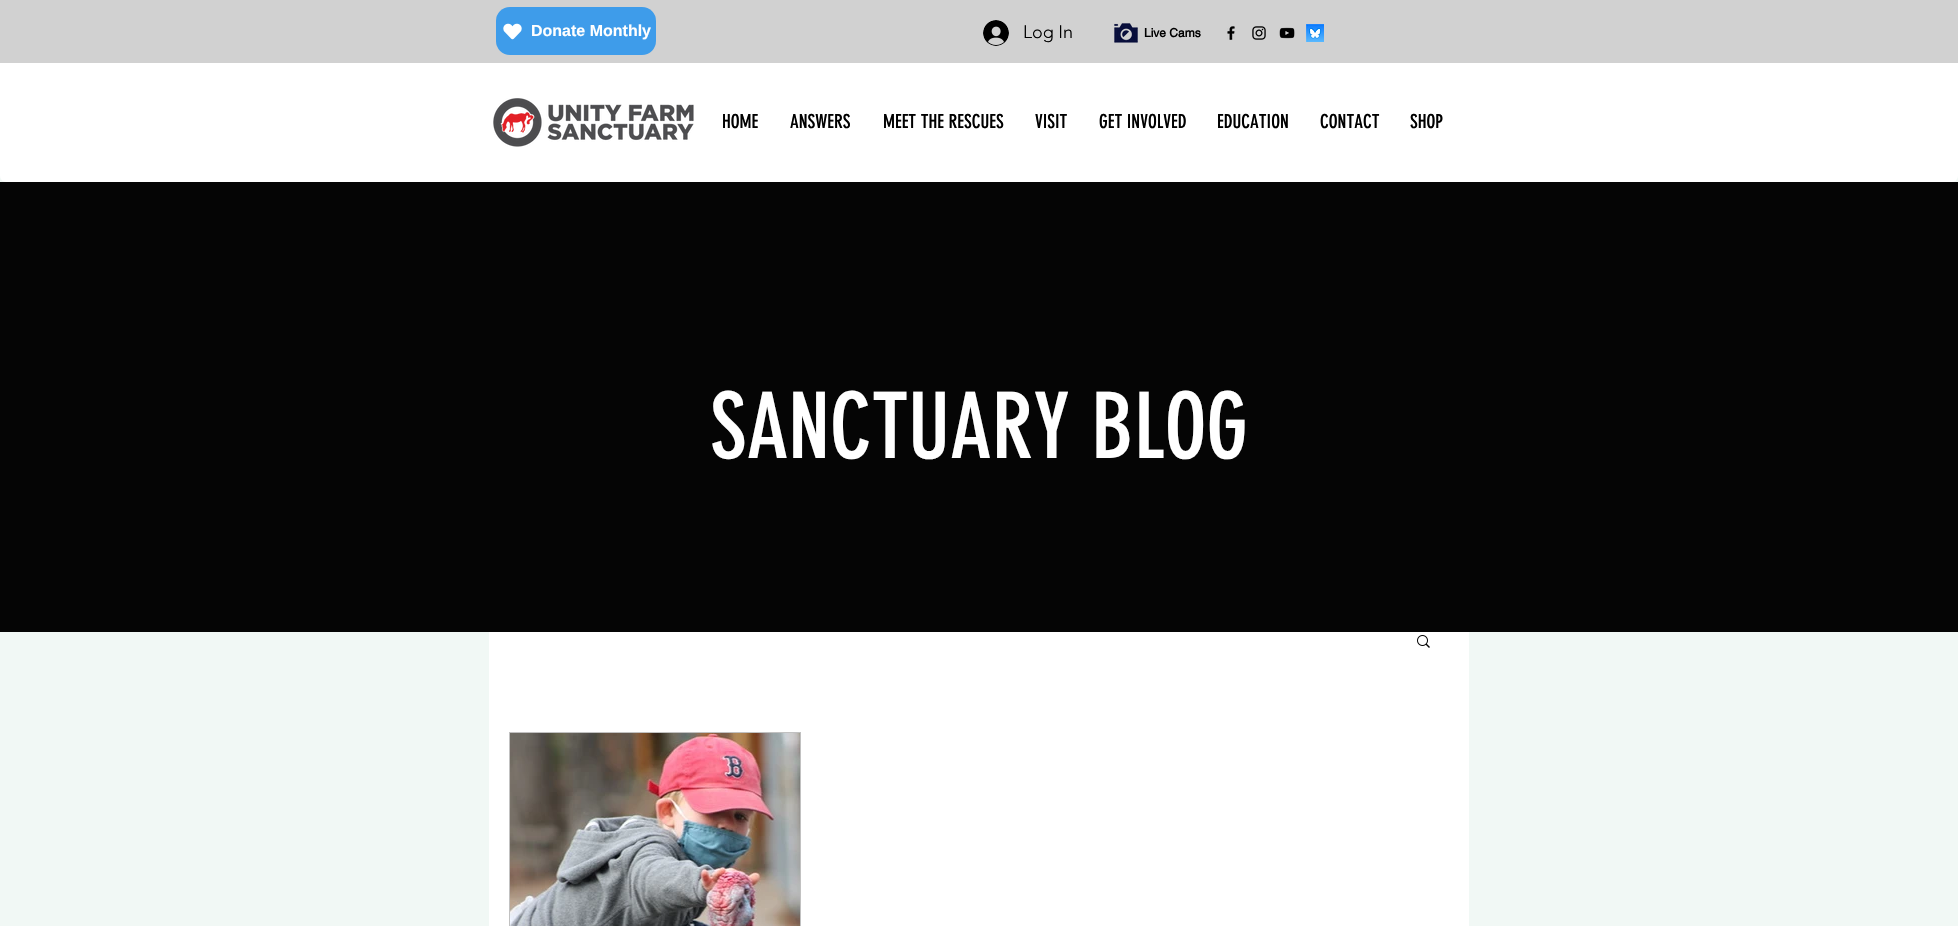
void draw(SkCanvas* canvas) {
  SkPaint paint;
  paint.setAntiAlias(true);
  auto face = [&](const char* family, int weight, float size, bool italic = false) {
    SkFontStyle style(weight, SkFontStyle::kNormal_Width,
      italic ? SkFontStyle::kItalic_Slant : SkFontStyle::kUpright_Slant);
    SkFont result(fontMgr->matchFamilyStyle(family, style), size);
    result.setSubpixel(true);
    return result;
  };
  auto paste = [&](const char* path, float x, float y, float w, float h) {
    auto image = SkImages::DeferredFromEncodedData(SkData::MakeFromFileName(path));
    canvas->drawImageRect(image, SkRect::MakeXYWH(x, y, w, h), SkSamplingOptions());
  };
  canvas->clear(0xfff1f8f5);
  paint.setColor(0xffffffff);
  canvas->drawRoundRect(SkRect::MakeXYWH(0, 0, 1958, 182), 6, 6, paint);
  paint.setColor(0xffd1d1d1);
  canvas->drawRect(SkRect::MakeXYWH(0, 0, 1958, 63), paint);
  paint.setColor(0xff3e9cea);
  canvas->drawRoundRect(SkRect::MakeXYWH(496, 7, 160, 48), 14, 14, paint);
  paste("img/1.png", 503, 23, 19, 17);
  paste("img/2.png", 983, 20, 26, 26);
  paste("img/3.png", 1114, 23, 24, 20);
  paste("img/4.png", 1227, 26, 8, 14);
  paste("img/5.png", 1252, 26, 14, 14);
  paste("img/6.png", 1279, 27, 16, 12);
  paste("img/7.png", 1306, 24, 18, 18);
  paste("img/8.png", 493, 98, 201, 49);
  paint.setColor(0xff050505);
  canvas->drawRect(SkRect::MakeXYWH(0, 182, 1958, 450), paint);
  paint.setColor(0xffffffff);
  canvas->drawRect(SkRect::MakeXYWH(489, 632, 980, 294), paint);
  paste("img/9.png", 1417, 635, 13, 13);
  paint.setStroke(true);
  paint.setStrokeWidth(1);
  paint.setColor(0xffc1c1c1);
  canvas->drawRect(SkRect::MakeXYWH(509.5f, 732.5f, 291, 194), paint);
  paste("img/10.png", 510, 733, 290, 193);
  auto f0 = face("Liberation Sans", 700, 16);
  paint.setStroke(false);
  paint.setColor(0xffffffff);
  canvas->drawString("Donate Monthly", 531, 36, f0, paint);
  auto f1 = face("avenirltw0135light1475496", 300, 18);
  paint.setColor(0xff000000);
  canvas->drawString("Log In", 1023, 38, f1, paint);
  auto f2 = face("helvetica", 700, 12);
  canvas->drawString("Live Cams", 1144, 37, f2, paint);
  auto f3 = face("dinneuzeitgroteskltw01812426", 400, 19);
  {
    const struct { const char* s; float x, y; } items[] = {
      {"HOME", 722, 128},
      {"ANSWERS", 790, 128},
      {"MEET THE RESCUES", 883, 128},
      {"VISIT", 1035, 128},
      {"GET INVOLVED", 1099, 128},
      {"EDUCATION", 1217, 128},
      {"CONTACT", 1320, 128},
      {"SHOP", 1410, 128},
    };
    for (auto [s, x, y] : items) {
      canvas->drawString(s, x, y, f3, paint);
    }
  }
  auto f4 = face("dinneuzeitgroteskltw01812426", 400, 90);
  paint.setColor(0xffffffff);
  canvas->drawString("SANCTUARY BLOG", 710, 458, f4, paint);
}
